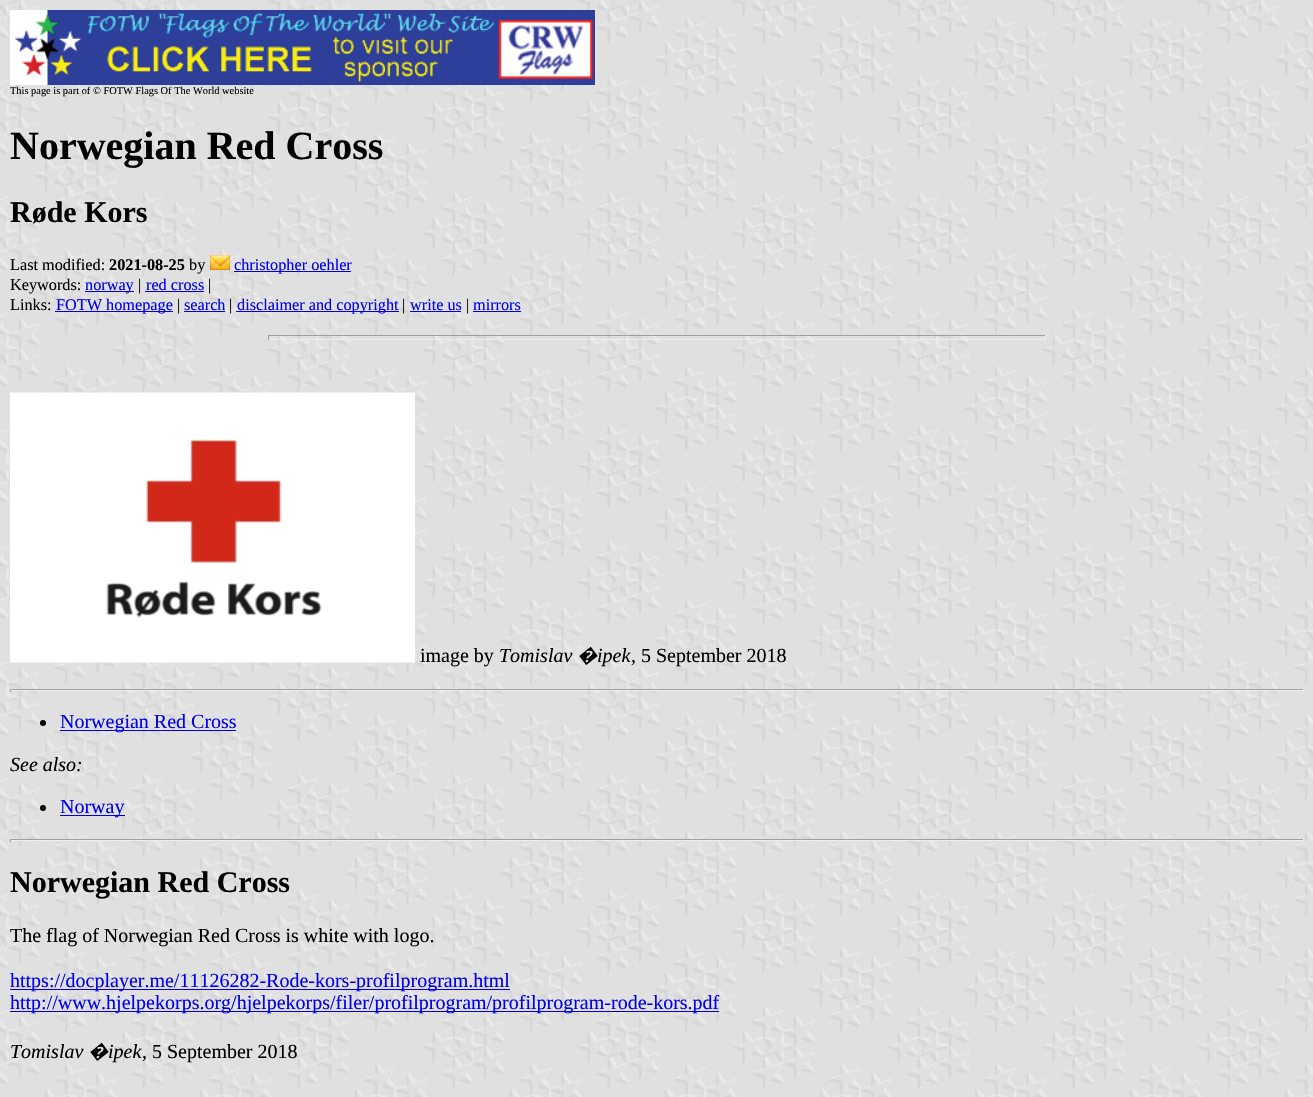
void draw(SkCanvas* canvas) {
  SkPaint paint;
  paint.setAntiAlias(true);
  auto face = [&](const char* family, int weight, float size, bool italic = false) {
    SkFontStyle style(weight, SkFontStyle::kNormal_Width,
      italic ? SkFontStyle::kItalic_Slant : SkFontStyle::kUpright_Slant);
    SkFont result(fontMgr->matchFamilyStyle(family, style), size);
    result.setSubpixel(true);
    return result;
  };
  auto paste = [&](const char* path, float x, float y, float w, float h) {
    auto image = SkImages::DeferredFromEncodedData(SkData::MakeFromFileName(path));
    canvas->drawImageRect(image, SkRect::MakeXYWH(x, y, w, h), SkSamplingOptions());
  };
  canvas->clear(0xffffffff);
  paste("img/1.png", 0, 0, 1313, 1097);
  paste("img/2.png", 10, 10, 585, 75);
  paste("img/3.png", 210, 255, 20, 15);
  {
    const struct { float x, y, w, h; SkColor color; } items[] = {
      {234, 271, 117, 1, 0xff0000ee},
      {85, 291, 49, 1, 0xff0000ee},
      {145, 291, 59, 1, 0xff0000ee},
      {55, 311, 118, 1, 0xff0000ee},
      {184, 311, 41, 1, 0xff0000ee},
      {236, 311, 163, 1, 0xff0000ee},
      {410, 311, 51, 1, 0xff0000ee},
      {473, 311, 48, 1, 0xff0000ee},
      {268, 335, 778, 1, 0xff9f9f9f},
      {1045, 335, 1, 5, 0xffeeeeee},
      {268, 339, 778, 1, 0xffeeeeee},
      {268, 335, 1, 5, 0xff9f9f9f},
    };
    for (auto [x, y, w, h, color] : items) {
      paint.setColor(color);
      canvas->drawRect(SkRect::MakeXYWH(x, y, w, h), paint);
    }
  }
  paste("img/4.png", 10, 392, 405, 271);
  {
    const struct { float x, y, w, h; SkColor color; } items[] = {
      {10, 689, 1294, 1, 0xff9f9f9f},
      {1303, 689, 1, 3, 0xffeeeeee},
      {10, 690, 1294, 1, 0xffeeeeee},
      {10, 689, 1, 3, 0xff9f9f9f},
    };
    for (auto [x, y, w, h, color] : items) {
      paint.setColor(color);
      canvas->drawRect(SkRect::MakeXYWH(x, y, w, h), paint);
    }
  }
  paint.setColor(0xff000000);
  canvas->drawCircle(43, 723, 3, paint);
  paint.setColor(0xff0000ee);
  canvas->drawRect(SkRect::MakeXYWH(60, 730, 176, 1), paint);
  paint.setColor(0xff000000);
  canvas->drawCircle(43, 808, 3, paint);
  {
    const struct { float x, y, w, h; SkColor color; } items[] = {
      {60, 815, 65, 1, 0xff0000ee},
      {10, 839, 1294, 1, 0xff9f9f9f},
      {1303, 839, 1, 3, 0xffeeeeee},
      {10, 840, 1294, 1, 0xffeeeeee},
      {10, 839, 1, 3, 0xff9f9f9f},
      {10, 989, 500, 1, 0xff0000ee},
      {10, 1011, 709, 1, 0xff0000ee},
    };
    for (auto [x, y, w, h, color] : items) {
      paint.setColor(color);
      canvas->drawRect(SkRect::MakeXYWH(x, y, w, h), paint);
    }
  }
  auto f0 = face("Liberation Serif", 400, 10.4f);
  paint.setColor(0xff000000);
  canvas->drawString("This page is part of © FOTW Flags Of The World website", 10, 94, f0, paint);
  auto f1 = face("Liberation Serif", 700, 40);
  canvas->drawString("Norwegian Red Cross", 10, 159, f1, paint);
  auto f2 = face("Liberation Serif", 700, 30);
  canvas->drawString("Røde Kors", 10, 222, f2, paint);
  auto f3 = face("Liberation Serif", 400, 16.25f);
  canvas->drawString("Last modified:", 10, 270, f3, paint);
  auto f4 = face("Liberation Serif", 700, 16.25f);
  canvas->drawString("2021-08-25", 109, 270, f4, paint);
  canvas->drawString("by", 189, 270, f3, paint);
  paint.setColor(0xff0000ee);
  canvas->drawString("christopher oehler", 234, 270, f3, paint);
  paint.setColor(0xff000000);
  canvas->drawString("Keywords:", 10, 290, f3, paint);
  paint.setColor(0xff0000ee);
  canvas->drawString("norway", 85, 290, f3, paint);
  paint.setColor(0xff000000);
  canvas->drawString("|", 138, 290, f3, paint);
  paint.setColor(0xff0000ee);
  canvas->drawString("red cross", 146, 290, f3, paint);
  paint.setColor(0xff000000);
  canvas->drawString("|", 208, 290, f3, paint);
  canvas->drawString("Links:", 10, 310, f3, paint);
  paint.setColor(0xff0000ee);
  canvas->drawString("FOTW homepage", 56, 310, f3, paint);
  paint.setColor(0xff000000);
  canvas->drawString("|", 177, 310, f3, paint);
  paint.setColor(0xff0000ee);
  canvas->drawString("search", 184, 310, f3, paint);
  paint.setColor(0xff000000);
  canvas->drawString("|", 229, 310, f3, paint);
  paint.setColor(0xff0000ee);
  canvas->drawString("disclaimer and copyright", 237, 310, f3, paint);
  paint.setColor(0xff000000);
  canvas->drawString("|", 402, 310, f3, paint);
  paint.setColor(0xff0000ee);
  canvas->drawString("write us", 410, 310, f3, paint);
  paint.setColor(0xff000000);
  canvas->drawString("|", 466, 310, f3, paint);
  paint.setColor(0xff0000ee);
  canvas->drawString("mirrors", 473, 310, f3, paint);
  auto f5 = face("Liberation Serif", 400, 20);
  paint.setColor(0xff000000);
  canvas->drawString("image by", 420, 662, f5, paint);
  auto f6 = face("Liberation Serif", 400, 20, true);
  canvas->drawString("Tomislav", 499, 662, f6, paint);
  auto f7 = face("Noto Sans", 400, 20, true);
  canvas->drawString("�", 577, 662, f7, paint);
  canvas->drawString("ipek", 597, 662, f6, paint);
  canvas->drawString(", 5 September 2018", 631, 662, f5, paint);
  paint.setColor(0xff0000ee);
  canvas->drawString("Norwegian Red Cross", 60, 728, f5, paint);
  paint.setColor(0xff000000);
  canvas->drawString("See also:", 10, 771, f6, paint);
  paint.setColor(0xff0000ee);
  canvas->drawString("Norway", 60, 813, f5, paint);
  paint.setColor(0xff000000);
  canvas->drawString("Norwegian Red Cross", 10, 892, f2, paint);
  canvas->drawString("The flag of Norwegian Red Cross is white with logo.", 10, 942, f5, paint);
  paint.setColor(0xff0000ee);
  canvas->drawString("https://docplayer.me/11126282-Rode-kors-profilprogram.html", 10, 987, f5, paint);
  canvas->drawString("http://www.hjelpekorps.org/hjelpekorps/filer/profilprogram/profilprogram-rode-kors.pdf", 10, 1009, f5, paint);
  paint.setColor(0xff000000);
  canvas->drawString("Tomislav", 10, 1058, f6, paint);
  canvas->drawString("�", 88, 1058, f7, paint);
  canvas->drawString("ipek", 108, 1058, f6, paint);
  canvas->drawString(", 5 September 2018", 142, 1058, f5, paint);
}
